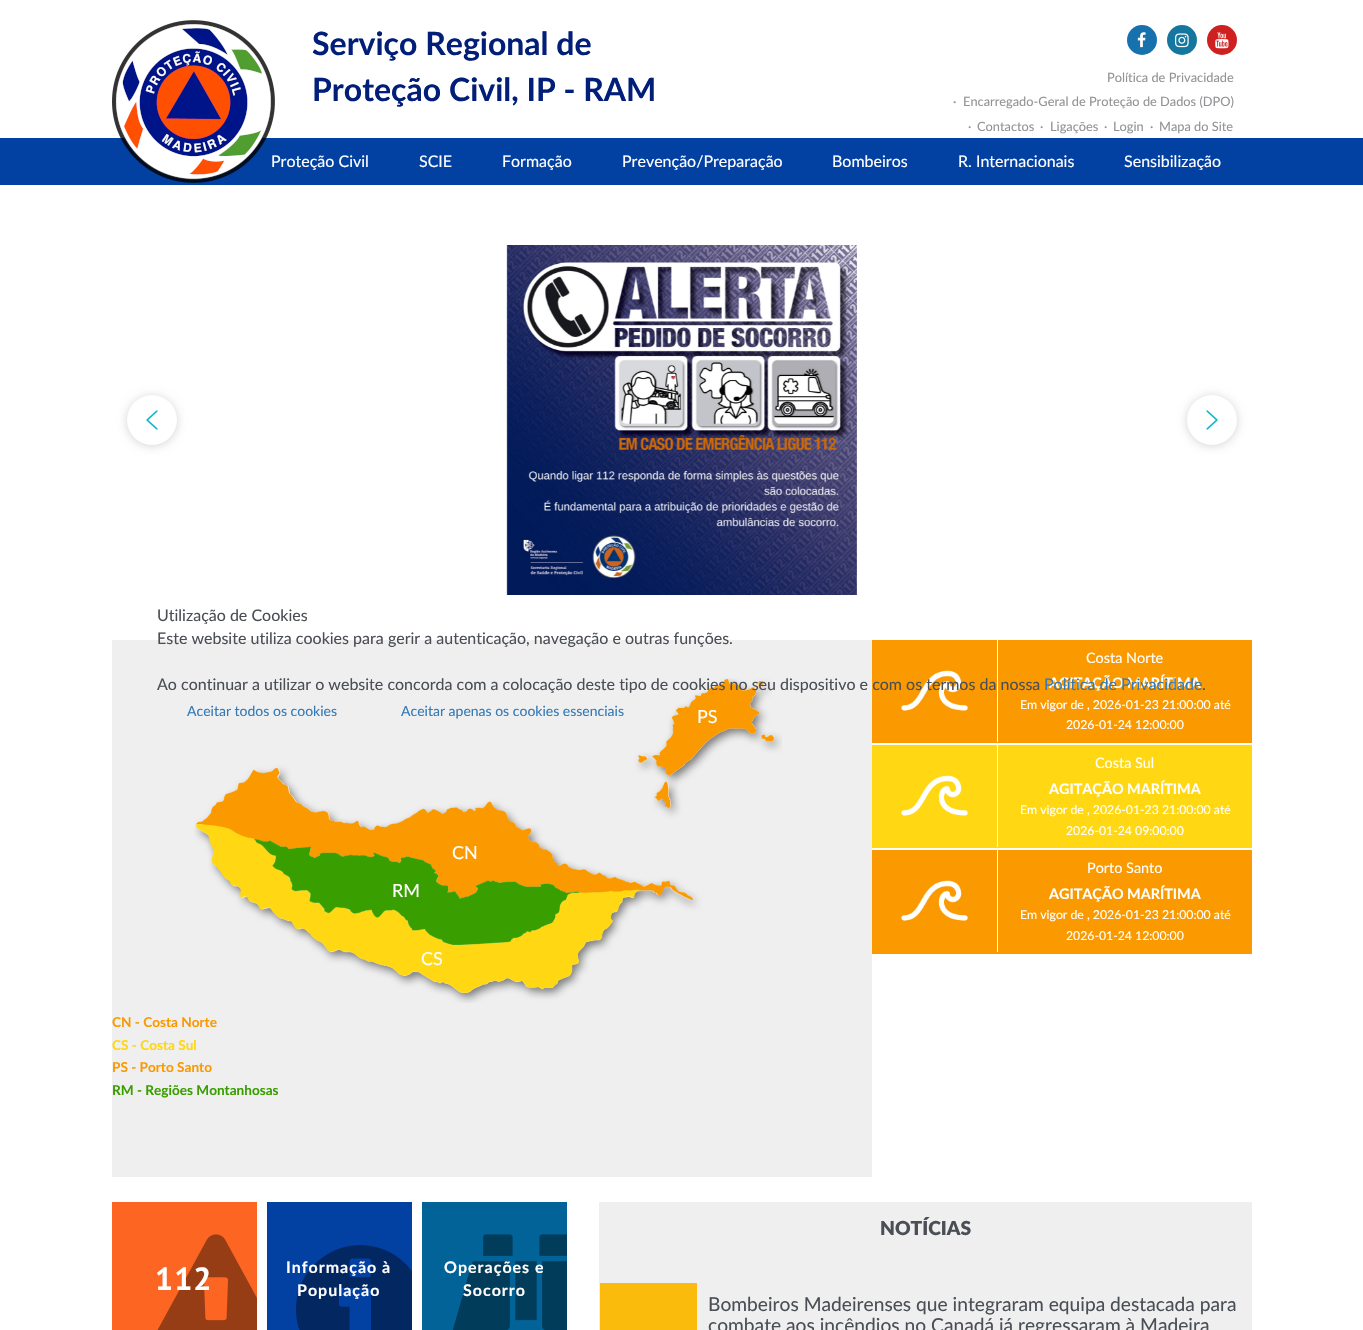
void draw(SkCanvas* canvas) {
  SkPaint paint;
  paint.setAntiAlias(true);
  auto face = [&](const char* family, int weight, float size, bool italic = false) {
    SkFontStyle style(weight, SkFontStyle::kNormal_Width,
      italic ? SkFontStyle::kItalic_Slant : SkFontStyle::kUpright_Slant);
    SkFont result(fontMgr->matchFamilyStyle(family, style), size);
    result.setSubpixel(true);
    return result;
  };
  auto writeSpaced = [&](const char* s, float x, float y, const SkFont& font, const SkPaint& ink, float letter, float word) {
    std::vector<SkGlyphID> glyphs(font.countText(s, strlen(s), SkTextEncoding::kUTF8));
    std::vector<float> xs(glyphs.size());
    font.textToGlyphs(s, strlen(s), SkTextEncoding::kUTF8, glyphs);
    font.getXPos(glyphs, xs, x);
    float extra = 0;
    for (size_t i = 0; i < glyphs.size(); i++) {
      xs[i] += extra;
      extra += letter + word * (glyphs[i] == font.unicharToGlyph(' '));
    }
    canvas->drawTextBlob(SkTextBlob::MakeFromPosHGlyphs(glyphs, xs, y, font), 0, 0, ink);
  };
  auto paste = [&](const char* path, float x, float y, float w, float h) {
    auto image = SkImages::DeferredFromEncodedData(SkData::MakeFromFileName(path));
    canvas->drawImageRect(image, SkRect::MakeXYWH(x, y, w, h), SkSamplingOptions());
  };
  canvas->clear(0xffffffff);
  paint.setColor(0xff1671ad);
  canvas->drawCircle(1142, 40, 15, paint);
  paste("img/2.png", 1137, 32, 9, 16);
  paint.setColor(0xff15779f);
  canvas->drawCircle(1182, 40, 15, paint);
  paste("img/3.png", 1175, 33, 14, 15);
  paint.setColor(0xffcd201f);
  canvas->drawCircle(1222, 40, 15, paint);
  paste("img/4.png", 1215, 32, 14, 17);
  paint.setColor(0xff0240a2);
  canvas->drawRect(SkRect::MakeXYWH(0, 138, 1363, 47), paint);
  paint.setColor(0x2b000000);
  paint.setMaskFilter(SkMaskFilter::MakeBlur(kNormal_SkBlurStyle, 5));
  canvas->drawRoundRect(SkRect::MakeXYWH(127, 396, 50, 50), 25, 25, paint);
  paint.setMaskFilter(nullptr);
  paint.setColor(0xffffffff);
  canvas->drawCircle(152, 420, 25, paint);
  paste("img/5.png", 146, 410, 12, 20);
  paste("img/6.png", 506, 245, 351, 350);
  paint.setColor(0x2b000000);
  paint.setMaskFilter(SkMaskFilter::MakeBlur(kNormal_SkBlurStyle, 5));
  canvas->drawRoundRect(SkRect::MakeXYWH(1187, 396, 50, 50), 25, 25, paint);
  paint.setMaskFilter(nullptr);
  paint.setColor(0xffffffff);
  canvas->drawCircle(1212, 420, 25, paint);
  paste("img/7.png", 1206, 410, 12, 20);
  paint.setColor(0xffefefef);
  canvas->drawRect(SkRect::MakeXYWH(112, 640, 760, 537), paint);
  paste("img/8.png", 194, 678, 588, 325);
  paste("img/10.png", 196, 768, 497, 132);
  paste("img/9.png", 638, 679, 136, 129);
  paste("img/11.png", 196, 824, 446, 169);
  paste("img/12.png", 254, 839, 325, 106);
  paint.setColor(0xfffa9900);
  canvas->drawRect(SkRect::MakeXYWH(872, 640, 380, 103), paint);
  paint.setColor(0xffffffff);
  canvas->drawRect(SkRect::MakeXYWH(997, 640, 1, 102), paint);
  paste("img/13.png", 901, 670, 67, 41);
  paint.setColor(0xffffd712);
  canvas->drawRect(SkRect::MakeXYWH(872, 745, 380, 103), paint);
  paint.setColor(0xffffffff);
  canvas->drawRect(SkRect::MakeXYWH(997, 745, 1, 102), paint);
  paste("img/14.png", 901, 775, 67, 41);
  paint.setColor(0xfffa9900);
  canvas->drawRect(SkRect::MakeXYWH(872, 850, 380, 104), paint);
  paint.setColor(0xffffffff);
  canvas->drawRect(SkRect::MakeXYWH(997, 850, 1, 102), paint);
  paste("img/15.png", 901, 880, 67, 41);
  paint.setColor(0xfffc6622);
  canvas->drawRect(SkRect::MakeXYWH(112, 1202, 145, 128), paint);
  paste("img/16.png", 157, 1234, 100, 96);
  paint.setColor(0xff0240a2);
  canvas->drawRect(SkRect::MakeXYWH(267, 1202, 145, 128), paint);
  paste("img/17.png", 296, 1245, 116, 85);
  paint.setColor(0xff026398);
  canvas->drawRect(SkRect::MakeXYWH(422, 1202, 145, 128), paint);
  paste("img/18.png", 452, 1234, 115, 96);
  paint.setColor(0xffefefef);
  canvas->drawRect(SkRect::MakeXYWH(599, 1202, 653, 128), paint);
  paint.setColor(0xfffbbb0d);
  canvas->drawRect(SkRect::MakeXYWH(600, 1283, 97, 47), paint);
  auto f0 = face("Lato", 700, 32);
  paint.setColor(0xff011e79);
  canvas->drawString("Serviço Regional de", 312, 55, f0, paint);
  canvas->drawString("Proteção Civil, IP - RAM", 312, 101, f0, paint);
  auto f1 = face("Lato", 400, 12.8f);
  paint.setColor(0xff919396);
  {
    const struct { const char* s; float x, y; } items[] = {
      {"Política de Privacidade", 1107, 82},
      {"·", 953, 106},
      {"Encarregado-Geral de Proteção de Dados (DPO)", 963, 106},
      {"·", 968, 131},
      {"Contactos", 977, 131},
      {"·", 1040, 131},
      {"Ligações", 1050, 131},
      {"·", 1104, 131},
      {"Login", 1113, 131},
      {"·", 1150, 131},
      {"Mapa do Site", 1159, 131},
    };
    for (auto [s, x, y] : items) {
      canvas->drawString(s, x, y, f1, paint);
    }
  }
  auto f2 = face("Lato", 400, 16);
  paint.setColor(0xffffffff);
  canvas->drawString("Proteção Civil", 271, 167, f2, paint);
  paste("img/1.png", 112, 20, 163, 163);
  {
    const struct { const char* s; float x, y; } items[] = {
      {"SCIE", 419, 167},
      {"Formação", 502, 167},
      {"Prevenção/Preparação", 622, 167},
      {"Bombeiros", 832, 167},
      {"R. Internacionais", 958, 167},
      {"Sensibilização", 1124, 167},
    };
    for (auto [s, x, y] : items) {
      canvas->drawString(s, x, y, f2, paint);
    }
  }
  paint.setColor(0xff4a4e55);
  {
    const struct { const char* s; float x, y; } items[] = {
      {"Utilização de Cookies", 157, 621},
      {"Este website utiliza cookies para gerir a autenticação, navegação e outras funções.", 157, 644},
      {"Ao continuar a utilizar o website concorda com a colocação deste tipo de cookies no seu dispositivo e com os termos da nossa", 157, 690},
      {".", 1202, 690},
    };
    for (auto [s, x, y] : items) {
      canvas->drawString(s, x, y, f2, paint);
    }
  }
  auto f3 = face("Lato", 400, 14);
  paint.setColor(0xff337ab7);
  canvas->drawString("Aceitar todos os cookies", 187, 716, f3, paint);
  canvas->drawString("Aceitar apenas os cookies essenciais", 401, 716, f3, paint);
  auto f4 = face("Lato", 400, 18);
  paint.setColor(0xffffffff);
  {
    const struct { const char* s; float x, y; } items[] = {
      {"PS", 697, 723},
      {"CN", 452, 859},
      {"RM", 392, 897},
      {"CS", 421, 965},
    };
    for (auto [s, x, y] : items) {
      canvas->drawString(s, x, y, f4, paint);
    }
  }
  auto f5 = face("Lato", 700, 13.6f);
  paint.setColor(0xfffa9900);
  canvas->drawString("CN - Costa Norte", 112, 1027, f5, paint);
  paint.setColor(0xffffd712);
  canvas->drawString("CS - Costa Sul", 112, 1050, f5, paint);
  paint.setColor(0xfffa9900);
  canvas->drawString("PS - Porto Santo", 112, 1072, f5, paint);
  paint.setColor(0xff399e00);
  canvas->drawString("RM - Regiões Montanhosas", 112, 1095, f5, paint);
  auto f6 = face("Lato", 400, 14.4f);
  paint.setColor(0xffffffff);
  canvas->drawString("Costa Norte", 1086, 663, f6, paint);
  auto f7 = face("Lato", 700, 14.4f);
  canvas->drawString("AGITAÇÃO MARÍTIMA", 1049, 688, f7, paint);
  paint.setColor(0xff337ab7);
  canvas->drawString("Política de Privacidade", 1044, 690, f2, paint);
  auto f8 = face("Lato", 400, 12.25f);
  paint.setColor(0xffffffff);
  canvas->drawString("Em vigor de , 2026-01-23 21:00:00 até", 1020, 709, f8, paint);
  canvas->drawString("2026-01-24 12:00:00", 1066, 729, f8, paint);
  canvas->drawString("Costa Sul", 1095, 768, f6, paint);
  canvas->drawString("AGITAÇÃO MARÍTIMA", 1049, 794, f7, paint);
  canvas->drawString("Em vigor de , 2026-01-23 21:00:00 até", 1020, 814, f8, paint);
  canvas->drawString("2026-01-24 09:00:00", 1066, 835, f8, paint);
  canvas->drawString("Porto Santo", 1087, 873, f6, paint);
  canvas->drawString("AGITAÇÃO MARÍTIMA", 1049, 899, f7, paint);
  canvas->drawString("Em vigor de , 2026-01-23 21:00:00 até", 1020, 919, f8, paint);
  canvas->drawString("2026-01-24 12:00:00", 1066, 940, f8, paint);
  auto f9 = face("PT Sans", 700, 32);
  writeSpaced("112", 155, 1290, f9, paint, 1, 0);
  auto f10 = face("Lato", 700, 16);
  {
    const struct { const char* s; float x, y; } items[] = {
      {"Informação à", 286, 1273},
      {"População", 297, 1296},
      {"Operações e", 444, 1273},
      {"Socorro", 463, 1296},
    };
    for (auto [s, x, y] : items) {
      writeSpaced(s, x, y, f10, paint, 1, 0);
    }
  }
  auto f11 = face("Lato", 800, 19.2f);
  paint.setColor(0xff4a4e55);
  canvas->drawString("NOTÍCIAS", 880, 1235, f11, paint);
  auto f12 = face("Lato", 400, 19.2f);
  canvas->drawString("Bombeiros Madeirenses que integraram equipa destacada para", 708, 1311, f12, paint);
  canvas->drawString("combate aos incêndios no Canadá já regressaram à Madeira", 708, 1332, f12, paint);
}
